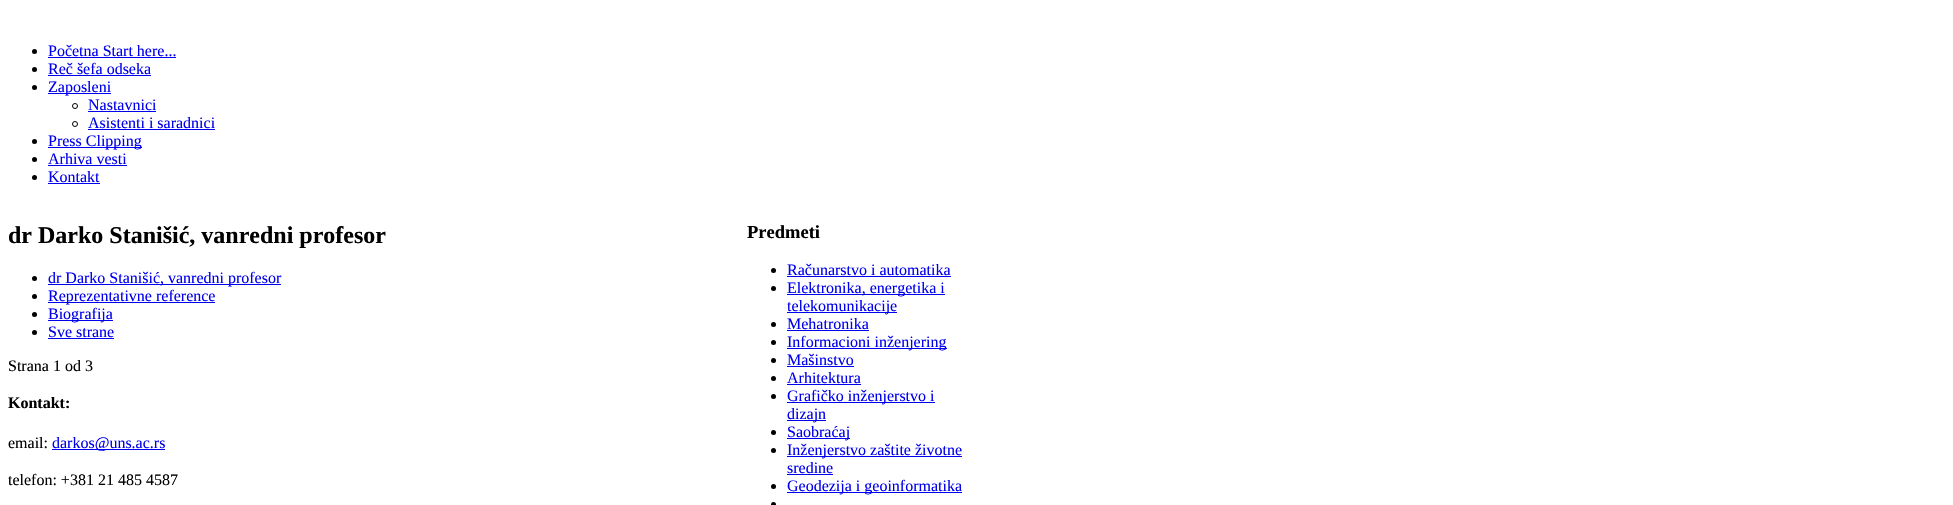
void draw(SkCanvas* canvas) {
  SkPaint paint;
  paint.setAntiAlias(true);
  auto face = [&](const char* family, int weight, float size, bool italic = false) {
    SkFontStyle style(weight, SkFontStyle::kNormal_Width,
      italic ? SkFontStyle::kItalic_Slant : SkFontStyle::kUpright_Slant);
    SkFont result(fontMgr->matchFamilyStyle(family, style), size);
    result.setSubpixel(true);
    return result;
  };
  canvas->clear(0xffffffff);
  paint.setColor(0xff000000);
  canvas->drawCircle(34.5f, 51.5f, 2.5f, paint);
  paint.setColor(0xff0000ee);
  canvas->drawRect(SkRect::MakeXYWH(48, 57, 128, 1), paint);
  paint.setColor(0xff000000);
  canvas->drawCircle(34.5f, 69.5f, 2.5f, paint);
  paint.setColor(0xff0000ee);
  canvas->drawRect(SkRect::MakeXYWH(48, 75, 103, 1), paint);
  paint.setColor(0xff000000);
  canvas->drawCircle(34.5f, 87.5f, 2.5f, paint);
  paint.setColor(0xff0000ee);
  canvas->drawRect(SkRect::MakeXYWH(48, 93, 63, 1), paint);
  paint.setStroke(true);
  paint.setStrokeWidth(1);
  paint.setColor(0xff000000);
  canvas->drawCircle(75, 106, 2.5f, paint);
  paint.setStroke(false);
  paint.setColor(0xff0000ee);
  canvas->drawRect(SkRect::MakeXYWH(88, 111, 68, 1), paint);
  paint.setStroke(true);
  paint.setColor(0xff000000);
  canvas->drawCircle(75, 124, 2.5f, paint);
  paint.setStroke(false);
  paint.setColor(0xff0000ee);
  canvas->drawRect(SkRect::MakeXYWH(88, 129, 127, 1), paint);
  paint.setColor(0xff000000);
  canvas->drawCircle(34.5f, 141.5f, 2.5f, paint);
  paint.setColor(0xff0000ee);
  canvas->drawRect(SkRect::MakeXYWH(48, 147, 94, 1), paint);
  paint.setColor(0xff000000);
  canvas->drawCircle(34.5f, 159.5f, 2.5f, paint);
  paint.setColor(0xff0000ee);
  canvas->drawRect(SkRect::MakeXYWH(48, 165, 79, 1), paint);
  paint.setColor(0xff000000);
  canvas->drawCircle(34.5f, 177.5f, 2.5f, paint);
  paint.setColor(0xff0000ee);
  canvas->drawRect(SkRect::MakeXYWH(48, 183, 52, 1), paint);
  paint.setColor(0xff000000);
  canvas->drawCircle(34.5f, 278.5f, 2.5f, paint);
  paint.setColor(0xff0000ee);
  canvas->drawRect(SkRect::MakeXYWH(48, 284, 233, 1), paint);
  paint.setColor(0xff000000);
  canvas->drawCircle(34.5f, 296.5f, 2.5f, paint);
  paint.setColor(0xff0000ee);
  canvas->drawRect(SkRect::MakeXYWH(48, 302, 167, 1), paint);
  paint.setColor(0xff000000);
  canvas->drawCircle(34.5f, 314.5f, 2.5f, paint);
  paint.setColor(0xff0000ee);
  canvas->drawRect(SkRect::MakeXYWH(48, 320, 65, 1), paint);
  paint.setColor(0xff000000);
  canvas->drawCircle(34.5f, 332.5f, 2.5f, paint);
  paint.setColor(0xff0000ee);
  canvas->drawRect(SkRect::MakeXYWH(48, 338, 66, 1), paint);
  canvas->drawRect(SkRect::MakeXYWH(52, 449, 113, 1), paint);
  paint.setColor(0xff000000);
  canvas->drawCircle(773.5f, 270.5f, 2.5f, paint);
  paint.setColor(0xff0000ee);
  canvas->drawRect(SkRect::MakeXYWH(787, 276, 164, 1), paint);
  paint.setColor(0xff000000);
  canvas->drawCircle(773.5f, 288.5f, 2.5f, paint);
  paint.setColor(0xff0000ee);
  canvas->drawRect(SkRect::MakeXYWH(787, 294, 158, 1), paint);
  canvas->drawRect(SkRect::MakeXYWH(787, 312, 110, 1), paint);
  paint.setColor(0xff000000);
  canvas->drawCircle(773.5f, 324.5f, 2.5f, paint);
  paint.setColor(0xff0000ee);
  canvas->drawRect(SkRect::MakeXYWH(787, 330, 82, 1), paint);
  paint.setColor(0xff000000);
  canvas->drawCircle(773.5f, 342.5f, 2.5f, paint);
  paint.setColor(0xff0000ee);
  canvas->drawRect(SkRect::MakeXYWH(787, 348, 160, 1), paint);
  paint.setColor(0xff000000);
  canvas->drawCircle(773.5f, 360.5f, 2.5f, paint);
  paint.setColor(0xff0000ee);
  canvas->drawRect(SkRect::MakeXYWH(787, 366, 67, 1), paint);
  paint.setColor(0xff000000);
  canvas->drawCircle(773.5f, 378.5f, 2.5f, paint);
  paint.setColor(0xff0000ee);
  canvas->drawRect(SkRect::MakeXYWH(787, 384, 74, 1), paint);
  paint.setColor(0xff000000);
  canvas->drawCircle(773.5f, 396.5f, 2.5f, paint);
  paint.setColor(0xff0000ee);
  canvas->drawRect(SkRect::MakeXYWH(787, 402, 148, 1), paint);
  canvas->drawRect(SkRect::MakeXYWH(787, 420, 39, 1), paint);
  paint.setColor(0xff000000);
  canvas->drawCircle(773.5f, 432.5f, 2.5f, paint);
  paint.setColor(0xff0000ee);
  canvas->drawRect(SkRect::MakeXYWH(787, 438, 63, 1), paint);
  paint.setColor(0xff000000);
  canvas->drawCircle(773.5f, 450.5f, 2.5f, paint);
  paint.setColor(0xff0000ee);
  canvas->drawRect(SkRect::MakeXYWH(787, 456, 175, 1), paint);
  canvas->drawRect(SkRect::MakeXYWH(787, 474, 46, 1), paint);
  paint.setColor(0xff000000);
  canvas->drawCircle(773.5f, 486.5f, 2.5f, paint);
  paint.setColor(0xff0000ee);
  canvas->drawRect(SkRect::MakeXYWH(787, 492, 175, 1), paint);
  paint.setColor(0xff000000);
  canvas->drawCircle(773.5f, 504.5f, 2.5f, paint);
  auto f0 = face("Liberation Serif", 400, 16);
  paint.setColor(0xff0000ee);
  {
    const struct { const char* s; float x, y; } items[] = {
      {"Početna Start here...", 48, 56},
      {"Reč šefa odseka", 48, 74},
      {"Zaposleni", 48, 92},
      {"Nastavnici", 88, 110},
      {"Asistenti i saradnici", 88, 128},
      {"Press Clipping", 48, 146},
      {"Arhiva vesti", 48, 164},
      {"Kontakt", 48, 182},
    };
    for (auto [s, x, y] : items) {
      canvas->drawString(s, x, y, f0, paint);
    }
  }
  auto f1 = face("Liberation Serif", 700, 24);
  paint.setColor(0xff000000);
  canvas->drawString("dr Darko Stanišić, vanredni profesor", 8, 243, f1, paint);
  paint.setColor(0xff0000ee);
  {
    const struct { const char* s; float x, y; } items[] = {
      {"dr Darko Stanišić, vanredni profesor", 48, 283},
      {"Reprezentativne reference", 48, 301},
      {"Biografija", 48, 319},
      {"Sve strane", 48, 337},
    };
    for (auto [s, x, y] : items) {
      canvas->drawString(s, x, y, f0, paint);
    }
  }
  paint.setColor(0xff000000);
  canvas->drawString("Strana 1 od 3", 8, 371, f0, paint);
  auto f2 = face("Liberation Serif", 700, 16);
  canvas->drawString("Kontakt:", 8, 408, f2, paint);
  canvas->drawString("email:", 8, 448, f0, paint);
  paint.setColor(0xff0000ee);
  canvas->drawString("darkos@uns.ac.rs", 52, 448, f0, paint);
  paint.setColor(0xff000000);
  canvas->drawString("telefon: +381 21 485 4587", 8, 485, f0, paint);
  auto f3 = face("Liberation Serif", 700, 18.5f);
  canvas->drawString("Predmeti", 747, 238, f3, paint);
  paint.setColor(0xff0000ee);
  {
    const struct { const char* s; float x, y; } items[] = {
      {"Računarstvo i automatika", 787, 275},
      {"Elektronika, energetika i", 787, 293},
      {"telekomunikacije", 787, 311},
      {"Mehatronika", 787, 329},
      {"Informacioni inženjering", 787, 347},
      {"Mašinstvo", 787, 365},
      {"Arhitektura", 787, 383},
      {"Grafičko inženjerstvo i", 787, 401},
      {"dizajn", 787, 419},
      {"Saobraćaj", 787, 437},
      {"Inženjerstvo zaštite životne", 787, 455},
      {"sredine", 787, 473},
      {"Geodezija i geoinformatika", 787, 491},
    };
    for (auto [s, x, y] : items) {
      canvas->drawString(s, x, y, f0, paint);
    }
  }
}
